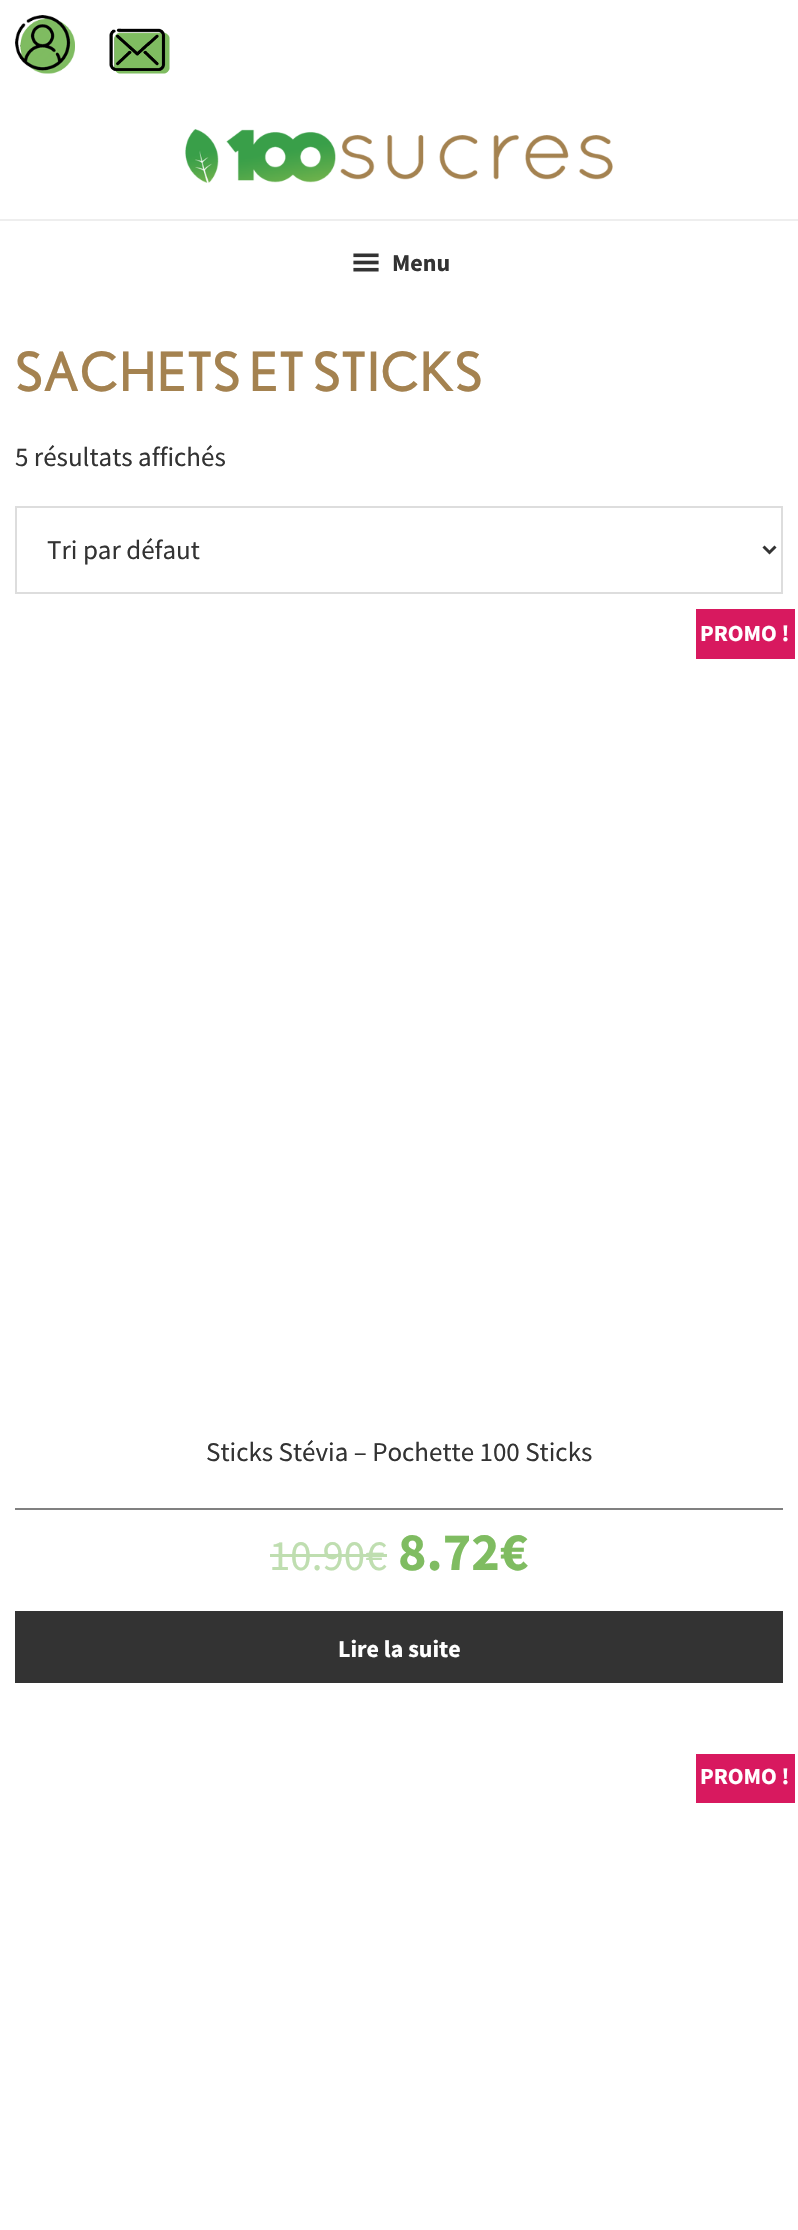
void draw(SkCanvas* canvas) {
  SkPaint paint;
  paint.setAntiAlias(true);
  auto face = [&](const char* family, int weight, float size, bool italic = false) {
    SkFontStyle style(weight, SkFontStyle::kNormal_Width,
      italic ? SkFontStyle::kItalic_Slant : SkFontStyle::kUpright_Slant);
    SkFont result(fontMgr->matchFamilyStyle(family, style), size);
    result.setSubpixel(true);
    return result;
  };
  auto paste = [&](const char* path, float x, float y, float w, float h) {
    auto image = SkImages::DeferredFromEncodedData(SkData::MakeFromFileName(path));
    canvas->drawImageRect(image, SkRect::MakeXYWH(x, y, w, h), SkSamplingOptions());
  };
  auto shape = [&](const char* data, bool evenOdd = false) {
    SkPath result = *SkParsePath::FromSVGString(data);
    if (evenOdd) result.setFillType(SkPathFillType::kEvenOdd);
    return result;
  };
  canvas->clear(0xffffffff);
  paste("img/1.png", 15, 15, 60, 59);
  paste("img/2.png", 109, 28, 61, 46);
  paste("img/3.png", 185, 129, 428, 54);
  paint.setColor(0xffeeeeee);
  canvas->drawRect(SkRect::MakeXYWH(0, 219, 798, 2), paint);
  paste("img/4.png", 353, 253, 26, 19);
  paint.setStroke(true);
  paint.setStrokeWidth(2);
  paint.setColor(0xffdddddd);
  canvas->drawRect(SkRect::MakeXYWH(16, 507, 766, 86), paint);
  paint.setStrokeWidth(3);
  paint.setColor(0xff333333);
  canvas->drawPath(shape("M763.5 546.5L769.5 552.5L775.5 546.5"), paint);
  paint.setStroke(false);
  {
    const struct { float x, y, w, h; SkColor color; } items[] = {
      {696, 609, 99, 50, 0xffd8195f},
      {15, 1508, 768, 2, 0xff808080},
      {270, 1554, 117, 3, 0xffbfdeb0},
      {15, 1611, 768, 72, 0xff333333},
      {696, 1754, 99, 49, 0xffd8195f},
    };
    for (auto [x, y, w, h, color] : items) {
      paint.setColor(color);
      canvas->drawRect(SkRect::MakeXYWH(x, y, w, h), paint);
    }
  }
  auto f0 = face("Source Sans Pro", 700, 24);
  paint.setColor(0xff333333);
  canvas->drawString("Menu", 392, 271, f0, paint);
  auto f1 = face("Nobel", 400, 54);
  paint.setColor(0xffa48250);
  canvas->drawString("SACHETS ET STICKS", 15, 391, f1, paint);
  auto f2 = face("Source Sans Pro", 400, 27);
  paint.setColor(0xff333333);
  canvas->drawString("5 résultats affichés", 15, 466, f2, paint);
  canvas->drawString("Tri par défaut", 47, 559, f2, paint);
  auto f3 = face("Source Sans Pro", 700, 23);
  paint.setColor(0xffffffff);
  canvas->drawString("PROMO !", 700, 641, f3, paint);
  paint.setColor(0xff333333);
  canvas->drawString("Sticks Stévia – Pochette 100 Sticks", 206, 1461, f2, paint);
  auto f4 = face("Source Sans Pro", 400, 43);
  paint.setColor(0xffbfdeb0);
  canvas->drawString("10.90€", 269, 1570, f4, paint);
  auto f5 = face("Source Sans Pro", 700, 54);
  paint.setColor(0xff7fbc61);
  canvas->drawString("8.72€", 398, 1570, f5, paint);
  paint.setColor(0xffffffff);
  canvas->drawString("Lire la suite", 338, 1657, f0, paint);
  canvas->drawString("PROMO !", 700, 1784, f3, paint);
}
